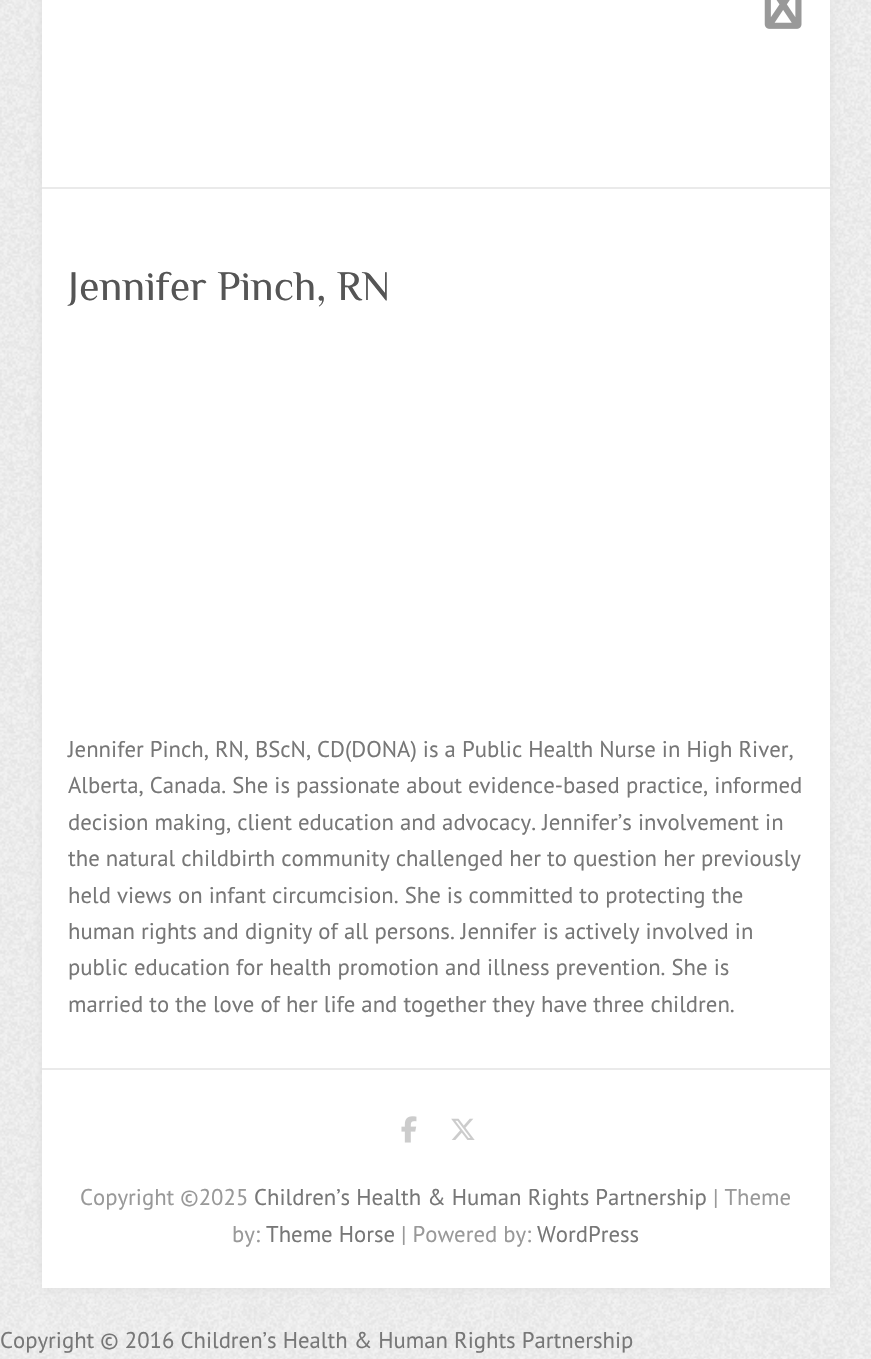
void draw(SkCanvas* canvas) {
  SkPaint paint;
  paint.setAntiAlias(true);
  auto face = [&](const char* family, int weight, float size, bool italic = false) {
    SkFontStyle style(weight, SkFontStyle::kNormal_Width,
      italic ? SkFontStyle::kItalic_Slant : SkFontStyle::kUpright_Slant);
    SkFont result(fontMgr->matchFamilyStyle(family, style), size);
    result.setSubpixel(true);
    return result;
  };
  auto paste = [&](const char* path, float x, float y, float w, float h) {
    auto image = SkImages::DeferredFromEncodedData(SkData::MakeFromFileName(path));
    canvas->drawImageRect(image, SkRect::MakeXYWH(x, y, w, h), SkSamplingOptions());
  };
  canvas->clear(0xffffffff);
  paste("img/1.png", 0, 0, 871, 1359);
  paint.setColor(0xffdddddd);
  paint.setMaskFilter(SkMaskFilter::MakeBlur(kNormal_SkBlurStyle, 4.5f));
  canvas->drawRect(SkRect::MakeXYWH(42, -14, 788, 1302), paint);
  paint.setMaskFilter(nullptr);
  paint.setColor(0xffffffff);
  canvas->drawRect(SkRect::MakeXYWH(42, 0, 788, 1288), paint);
  paste("img/2.png", 764, 0, 38, 29);
  paint.setColor(0xffeaeaea);
  canvas->drawRect(SkRect::MakeXYWH(42, 187, 788, 2), paint);
  canvas->drawRect(SkRect::MakeXYWH(42, 1068, 788, 2), paint);
  paste("img/3.png", 401, 1116, 16, 27);
  paste("img/4.png", 451, 1118, 24, 22);
  auto f0 = face("Philosopher", 400, 42);
  paint.setColor(0xff555555);
  canvas->drawString("Jennifer Pinch, RN", 68, 300, f0, paint);
  auto f1 = face("PT Sans", 400, 22.75f);
  paint.setColor(0xff777777);
  {
    const struct { const char* s; float x, y; } items[] = {
      {"Jennifer Pinch, RN, BScN, CD(DONA) is a Public Health Nurse in High River,", 68, 757},
      {"Alberta, Canada. She is passionate about evidence-based practice, informed", 68, 793},
      {"decision making, client education and advocacy. Jennifer’s involvement in", 68, 830},
      {"the natural childbirth community challenged her to question her previously", 68, 866},
      {"held views on infant circumcision. She is committed to protecting the", 68, 903},
      {"human rights and dignity of all persons. Jennifer is actively involved in", 68, 939},
      {"public education for health promotion and illness prevention. She is", 68, 975},
      {"married to the love of her life and together they have three children.", 68, 1012},
    };
    for (auto [s, x, y] : items) {
      canvas->drawString(s, x, y, f1, paint);
    }
  }
  paint.setColor(0xff999999);
  canvas->drawString("Copyright ©2025", 80, 1205, f1, paint);
  paint.setColor(0xff777777);
  canvas->drawString("Children’s Health & Human Rights Partnership", 254, 1205, f1, paint);
  paint.setColor(0xff999999);
  canvas->drawString("| Theme", 713, 1205, f1, paint);
  canvas->drawString("by:", 232, 1242, f1, paint);
  paint.setColor(0xff777777);
  canvas->drawString("Theme Horse", 266, 1242, f1, paint);
  paint.setColor(0xff999999);
  canvas->drawString("| Powered by:", 401, 1242, f1, paint);
  paint.setColor(0xff777777);
  canvas->drawString("WordPress", 537, 1242, f1, paint);
  canvas->drawString("Copyright © 2016 Children’s Health & Human Rights Partnership", 0, 1348, f1, paint);
}
